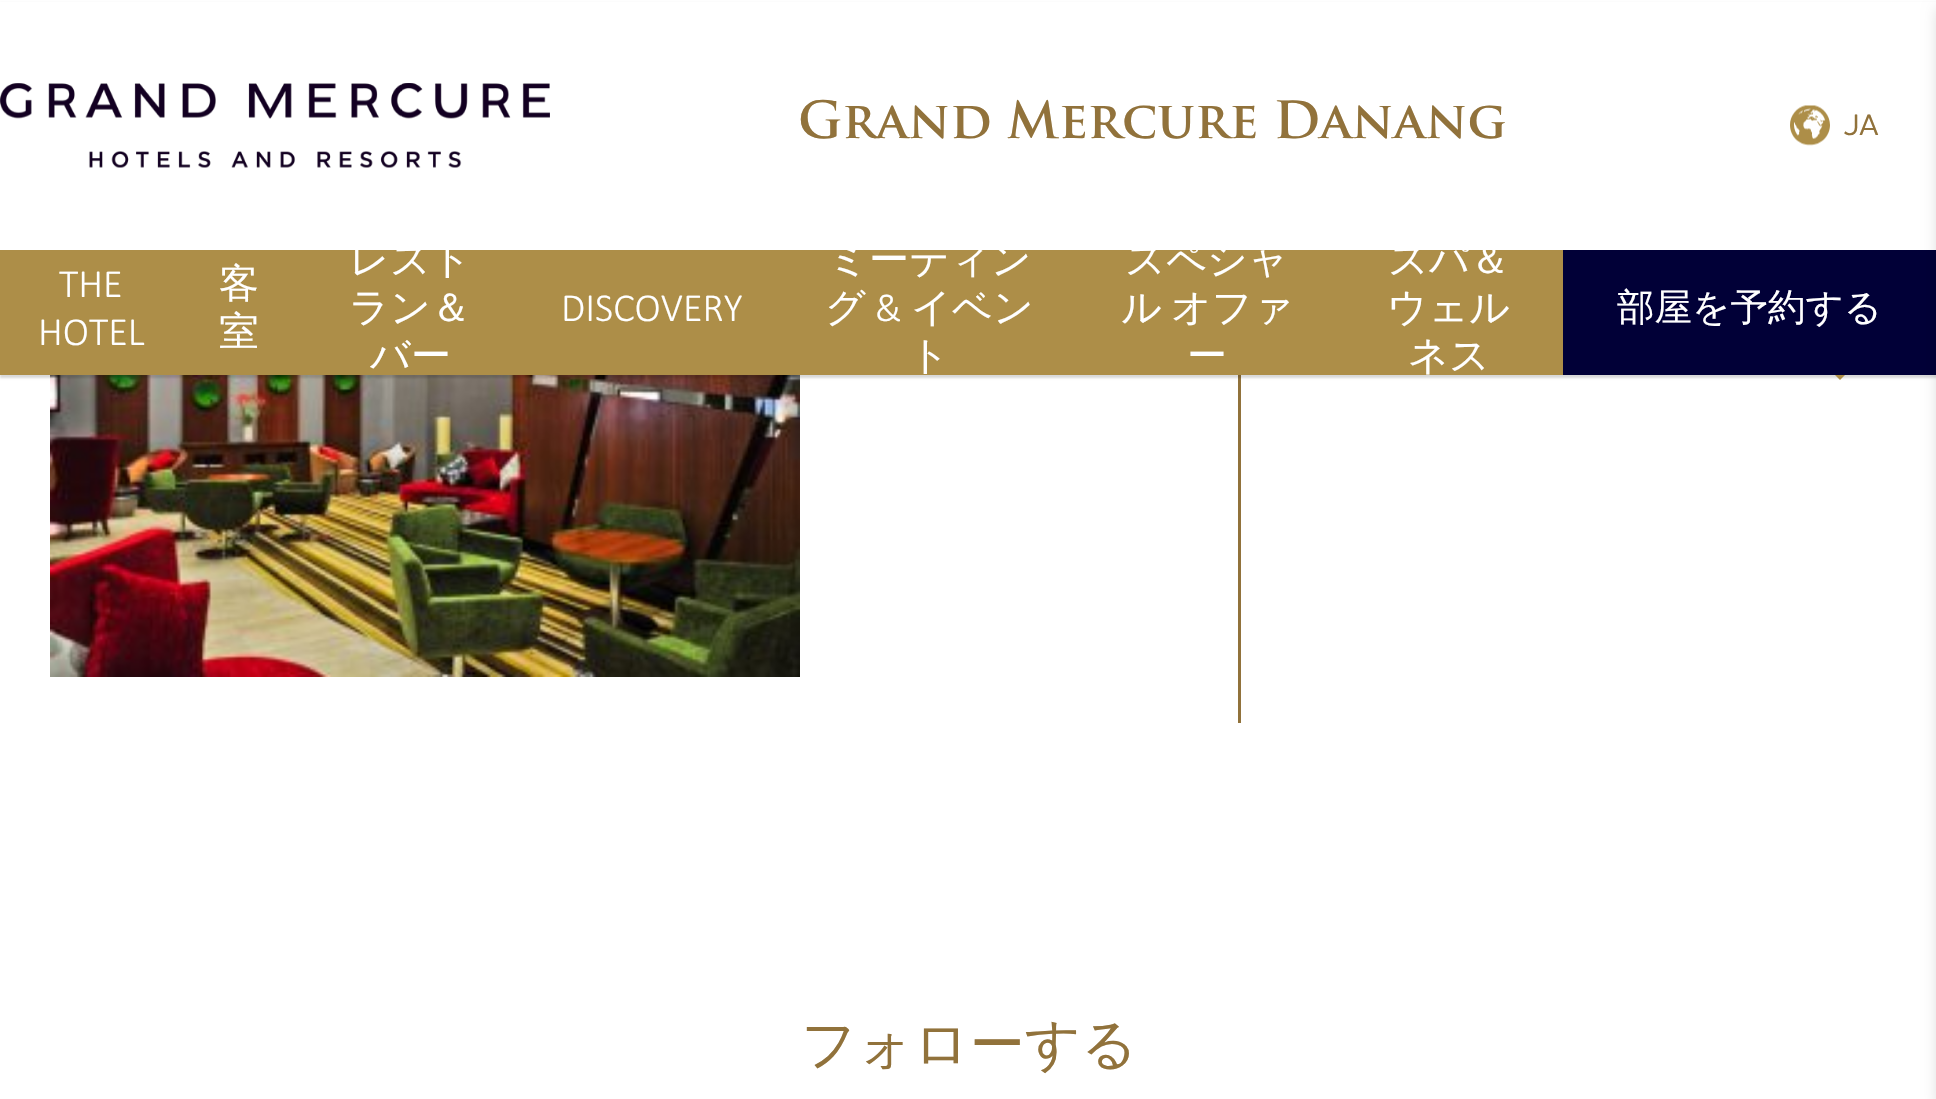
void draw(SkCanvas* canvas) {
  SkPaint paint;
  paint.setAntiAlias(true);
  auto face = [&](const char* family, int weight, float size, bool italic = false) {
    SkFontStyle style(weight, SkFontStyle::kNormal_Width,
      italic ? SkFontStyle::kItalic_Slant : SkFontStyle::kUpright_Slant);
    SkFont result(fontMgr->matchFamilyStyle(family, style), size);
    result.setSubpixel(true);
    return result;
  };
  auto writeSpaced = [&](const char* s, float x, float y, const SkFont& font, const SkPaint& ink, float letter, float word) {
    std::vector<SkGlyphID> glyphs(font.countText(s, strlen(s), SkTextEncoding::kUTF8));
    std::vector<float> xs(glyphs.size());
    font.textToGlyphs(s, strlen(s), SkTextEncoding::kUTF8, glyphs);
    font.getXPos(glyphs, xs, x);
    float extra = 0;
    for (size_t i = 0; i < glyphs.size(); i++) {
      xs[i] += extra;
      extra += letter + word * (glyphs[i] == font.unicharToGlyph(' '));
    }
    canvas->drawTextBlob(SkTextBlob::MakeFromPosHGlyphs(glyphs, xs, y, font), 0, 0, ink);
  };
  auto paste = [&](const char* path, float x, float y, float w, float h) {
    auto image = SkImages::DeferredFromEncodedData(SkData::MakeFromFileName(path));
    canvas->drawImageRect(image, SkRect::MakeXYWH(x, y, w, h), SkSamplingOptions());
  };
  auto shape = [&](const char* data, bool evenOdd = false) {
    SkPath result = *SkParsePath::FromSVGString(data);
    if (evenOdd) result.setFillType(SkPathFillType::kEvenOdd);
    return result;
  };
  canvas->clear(0xffffffff);
  paint.setColor(0xff91723b);
  canvas->drawRect(SkRect::MakeXYWH(1238, 375, 3, 348), paint);
  paste("img/3.png", 50, 375, 750, 302);
  paint.setColor(0x26000000);
  paint.setMaskFilter(SkMaskFilter::MakeBlur(kNormal_SkBlurStyle, 1));
  canvas->drawRect(SkRect::MakeXYWH(0, 3, 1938, 375), paint);
  paint.setMaskFilter(nullptr);
  paint.setColor(0xffffffff);
  canvas->drawRect(SkRect::MakeXYWH(0, 2, 1936, 248), paint);
  paste("img/1.png", 0, 83, 550, 85);
  paste("img/2.png", 1790, 105, 40, 41);
  paint.setColor(0xffad8e48);
  canvas->drawPath(shape("M1849.5 370.5L1840 380L1830.5 370.5"), paint);
  canvas->drawRect(SkRect::MakeXYWH(0, 250, 1563, 125), paint);
  paint.setColor(0xff010037);
  canvas->drawRect(SkRect::MakeXYWH(1563, 250, 373, 125), paint);
  paint.setColor(0x26000000);
  paint.setMaskFilter(SkMaskFilter::MakeBlur(kNormal_SkBlurStyle, 7.5f));
  canvas->drawRect(SkRect::MakeXYWH(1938, 8, 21, 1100), paint);
  paint.setMaskFilter(nullptr);
  auto f0 = face("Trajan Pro", 700, 50);
  paint.setColor(0xff91723b);
  canvas->drawString("Grand Mercure Danang", 798, 138, f0, paint);
  auto f1 = face("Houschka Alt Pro", 500, 30);
  canvas->drawString("JA", 1844, 135, f1, paint);
  auto f2 = face("Calibri", 300, 40);
  paint.setColor(0xffffffff);
  canvas->drawString("THE", 59, 297, f2, paint);
  canvas->drawString("HOTEL", 38, 345, f2, paint);
  auto f3 = face("WenQuanYi Zen Hei", 500, 40);
  {
    const struct { const char* s; float x, y; } items[] = {
      {"客", 219, 297},
      {"室", 219, 345},
      {"レスト", 349, 273},
      {"ラン＆", 349, 321},
      {"バー", 370, 369},
    };
    for (auto [s, x, y] : items) {
      canvas->drawString(s, x, y, f3, paint);
    }
  }
  canvas->drawString("DISCOVERY", 561, 321, f2, paint);
  canvas->drawString("ミーティン", 828, 273, f3, paint);
  canvas->drawString("グ", 825, 321, f3, paint);
  canvas->drawString("&", 875, 321, f2, paint);
  {
    const struct { const char* s; float x, y; } items[] = {
      {"イベン", 911, 321},
      {"ト", 909, 369},
      {"スペシャ", 1125, 273},
    };
    for (auto [s, x, y] : items) {
      canvas->drawString(s, x, y, f3, paint);
    }
  }
  writeSpaced("ル オファ", 1121, 321, f3, paint, 0, -3);
  {
    const struct { const char* s; float x, y; } items[] = {
      {"ー", 1187, 369},
      {"スパ＆", 1388, 273},
      {"ウェル", 1387, 321},
      {"ネス", 1408, 369},
    };
    for (auto [s, x, y] : items) {
      canvas->drawString(s, x, y, f3, paint);
    }
  }
  auto f4 = face("WenQuanYi Zen Hei", 500, 37.5f);
  canvas->drawString("部屋を予約する", 1617, 320, f4, paint);
  auto f5 = face("WenQuanYi Zen Hei", 500, 55);
  paint.setColor(0xff91723b);
  canvas->drawString("フォローする", 801, 1063, f5, paint);
}
